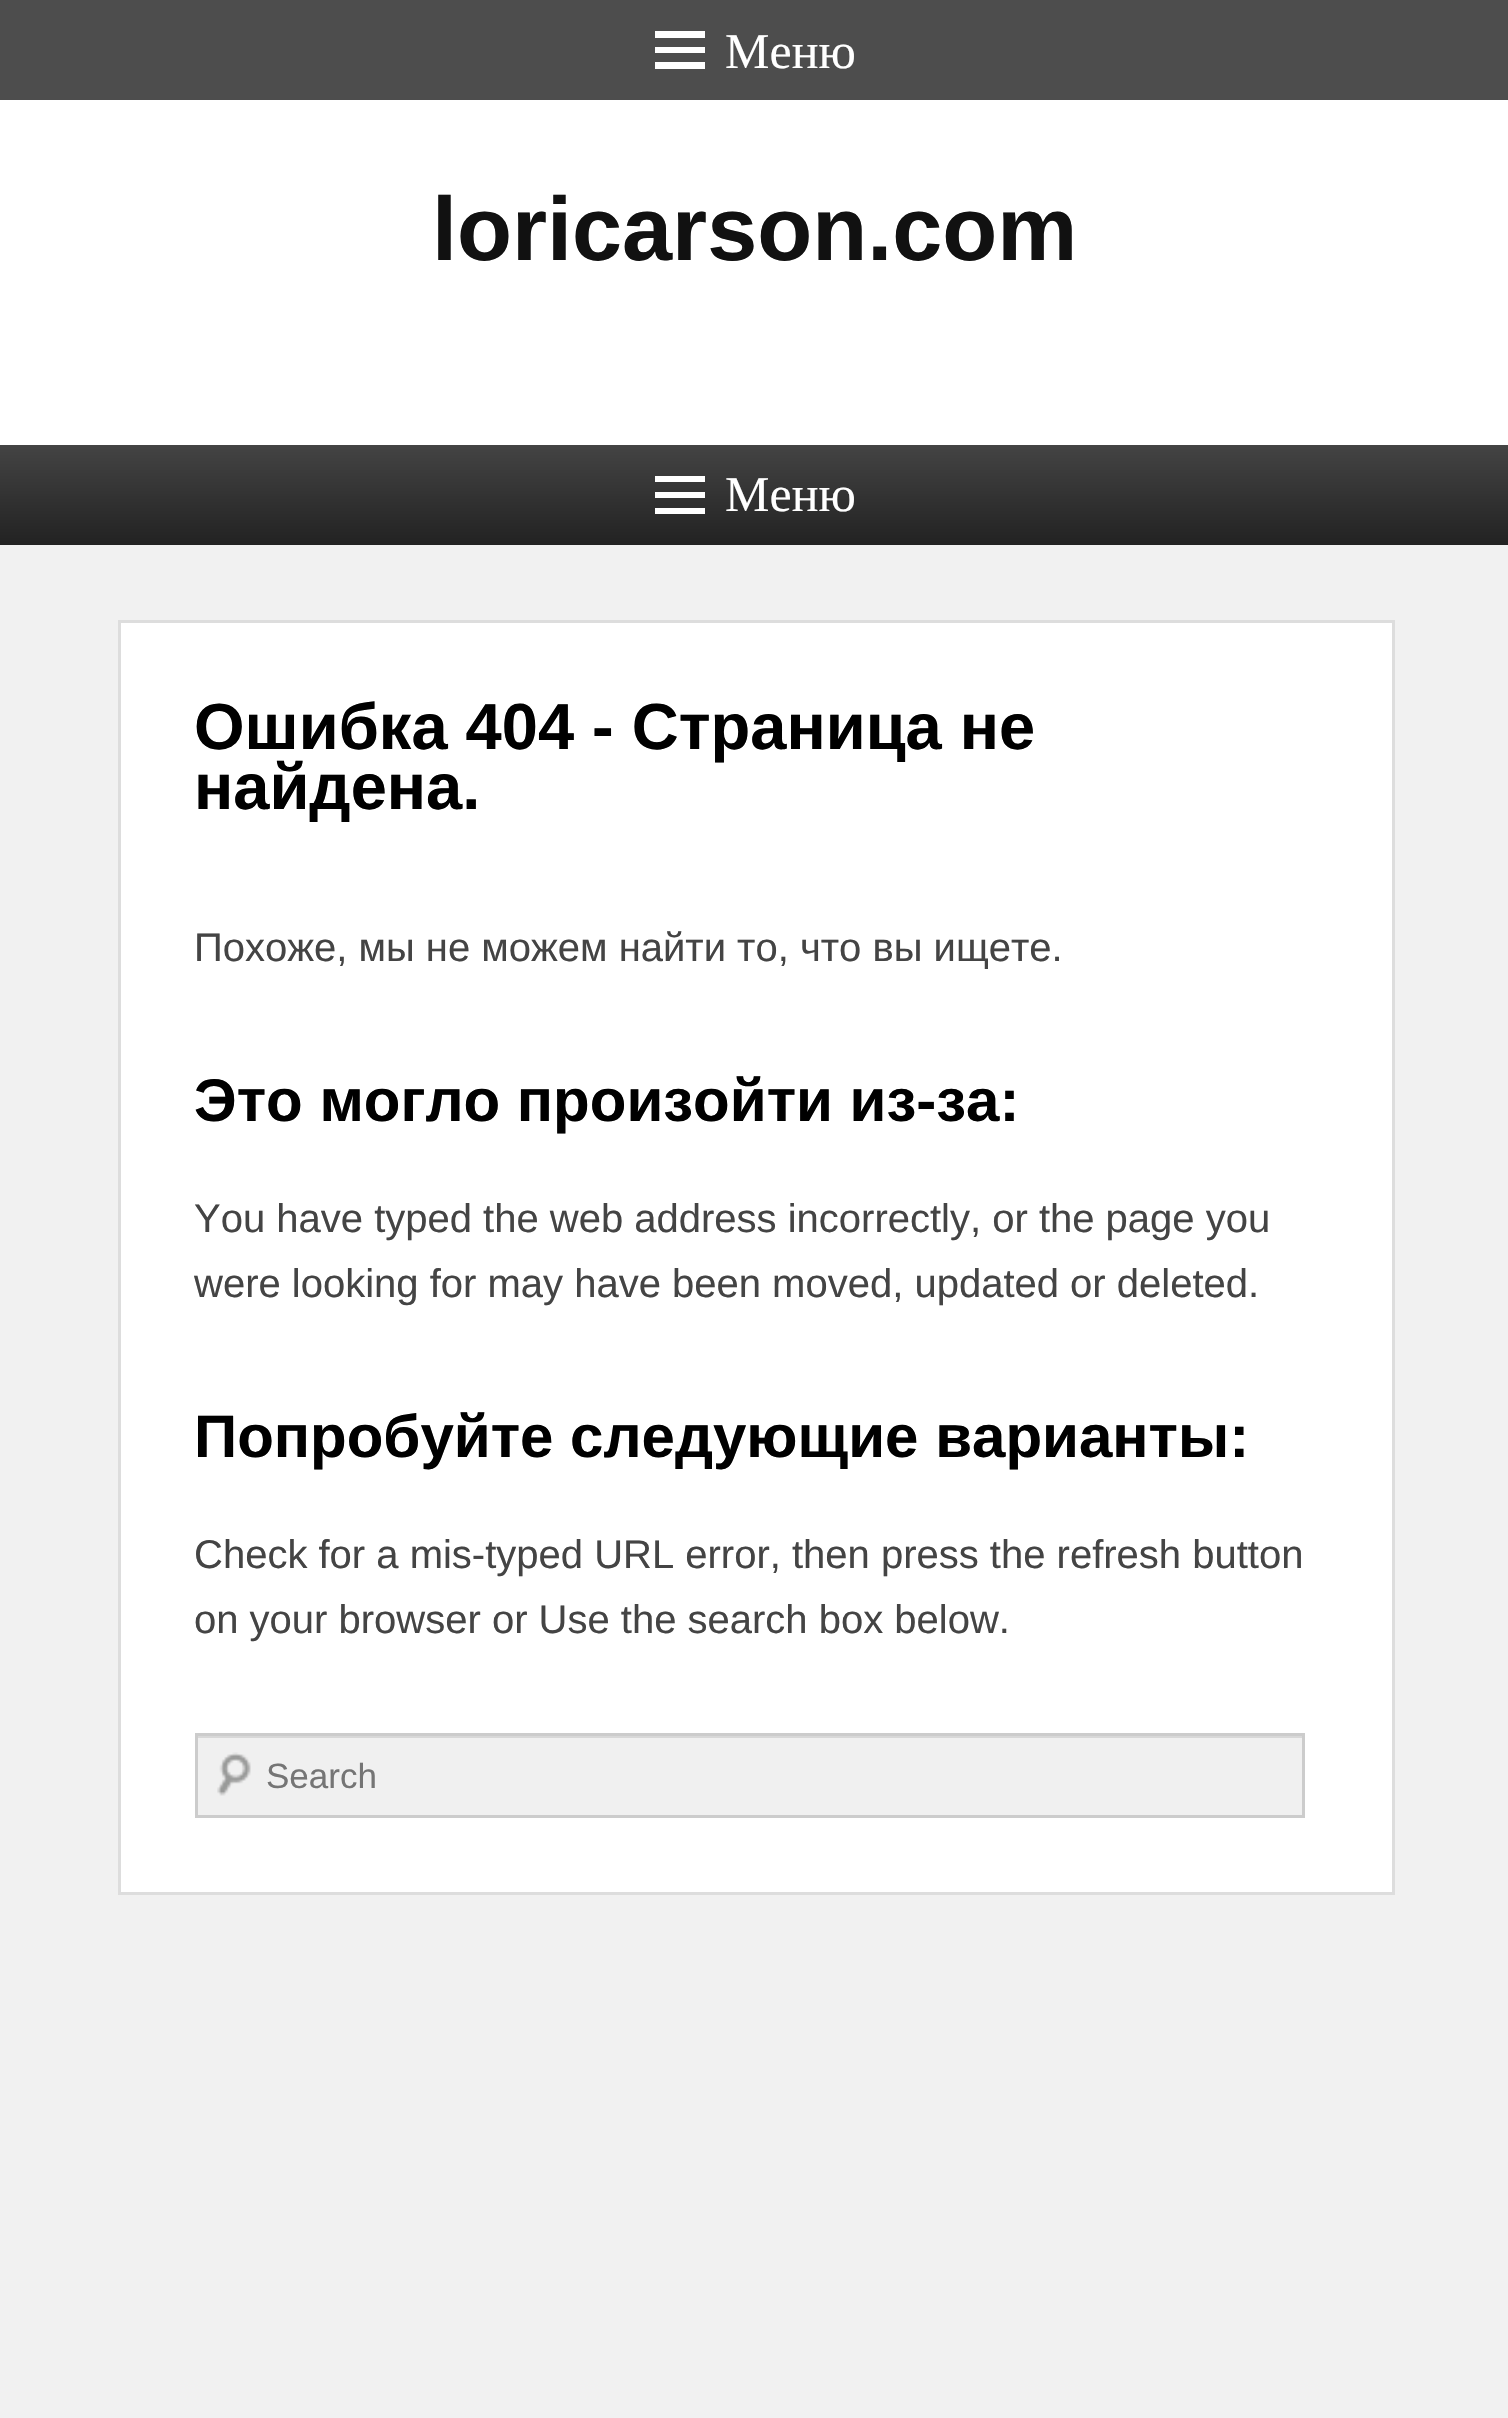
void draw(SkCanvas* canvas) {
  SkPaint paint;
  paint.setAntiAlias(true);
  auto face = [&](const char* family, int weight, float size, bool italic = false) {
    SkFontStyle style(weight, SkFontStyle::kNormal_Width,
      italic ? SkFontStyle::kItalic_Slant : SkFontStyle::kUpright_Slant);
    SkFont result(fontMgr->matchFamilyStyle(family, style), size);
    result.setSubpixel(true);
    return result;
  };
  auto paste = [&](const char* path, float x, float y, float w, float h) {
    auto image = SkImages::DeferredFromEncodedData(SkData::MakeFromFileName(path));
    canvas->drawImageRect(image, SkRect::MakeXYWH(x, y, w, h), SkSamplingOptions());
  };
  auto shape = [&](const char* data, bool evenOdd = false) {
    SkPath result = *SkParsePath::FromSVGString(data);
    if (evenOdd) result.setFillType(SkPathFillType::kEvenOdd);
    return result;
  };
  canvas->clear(0xfff1f1f1);
  paint.setColor(0xff4d4d4d);
  canvas->drawRect(SkRect::MakeXYWH(0, 0, 1508, 100), paint);
  paint.setColor(0xffffffff);
  canvas->drawPath(shape("M655 69V62H705V69ZM655 31H705V38H655ZM655 53V47H705V53Z"), paint);
  canvas->drawRect(SkRect::MakeXYWH(0, 100, 1508, 345), paint);
  {
    const SkColor colors[] = {0xff444444, 0xff222222};
    const float stops[] = {0, 1};
    const SkPoint ends[] = {{755, 445}, {755, 545}};
    paint.setShader(SkGradientShader::MakeLinear(ends, colors, stops, 2, SkTileMode::kClamp));
    paint.setAlpha(255);
  }
  canvas->drawRect(SkRect::MakeXYWH(0, 445, 1508, 100), paint);
  paint.setShader(nullptr);
  paint.setColor(0xffffffff);
  canvas->drawPath(shape("M655 514V508H705V514ZM655 476H705V482H655ZM655 498V492H705V498Z"), paint);
  canvas->drawRect(SkRect::MakeXYWH(119.5f, 621.5f, 1274, 1272), paint);
  paint.setStroke(true);
  paint.setStrokeWidth(3);
  paint.setColor(0xffdddddd);
  canvas->drawRect(SkRect::MakeXYWH(119.5f, 621.5f, 1274, 1272), paint);
  paint.setStroke(false);
  paint.setColor(0xfff0f0f0);
  canvas->drawRect(SkRect::MakeXYWH(198, 1738, 1104, 77), paint);
  paste("img/1.png", 217, 1752, 34, 44);
  paint.setColor(0xffd8d8d8);
  canvas->drawRect(SkRect::MakeXYWH(198, 1736, 1105, 2), paint);
  paint.setStroke(true);
  paint.setColor(0xffcccccc);
  canvas->drawRect(SkRect::MakeXYWH(196.5f, 1734.5f, 1107, 82), paint);
  auto f0 = face("Liberation Serif", 400, 50);
  paint.setStroke(false);
  paint.setColor(0xffffffff);
  canvas->drawString("Меню", 725, 68, f0, paint);
  auto f1 = face("Liberation Sans", 700, 90);
  paint.setColor(0xff111111);
  canvas->drawString("loricarson.com", 432, 260, f1, paint);
  paint.setColor(0xffffffff);
  canvas->drawString("Меню", 725, 511, f0, paint);
  auto f2 = face("Liberation Sans", 700, 65);
  paint.setColor(0xff000000);
  canvas->drawString("Ошибка 404 - Страница не", 194, 749, f2, paint);
  canvas->drawString("найдена.", 194, 809, f2, paint);
  auto f3 = face("Liberation Sans", 400, 40);
  paint.setColor(0xff444444);
  canvas->drawString("Похоже, мы не можем найти то, что вы ищете.", 194, 961, f3, paint);
  auto f4 = face("Liberation Sans", 700, 60);
  paint.setColor(0xff000000);
  canvas->drawString("Это могло произойти из-за:", 194, 1121, f4, paint);
  paint.setColor(0xff444444);
  canvas->drawString("You have typed the web address incorrectly, or the page you", 194, 1232, f3, paint);
  canvas->drawString("were looking for may have been moved, updated or deleted.", 194, 1297, f3, paint);
  paint.setColor(0xff000000);
  canvas->drawString("Попробуйте следующие варианты:", 194, 1457, f4, paint);
  paint.setColor(0xff444444);
  canvas->drawString("Check for a mis-typed URL error, then press the refresh button", 194, 1568, f3, paint);
  canvas->drawString("on your browser or Use the search box below.", 194, 1633, f3, paint);
  auto f5 = face("Liberation Sans", 400, 35);
  paint.setColor(0xff757575);
  canvas->drawString("Search", 266, 1788, f5, paint);
}
